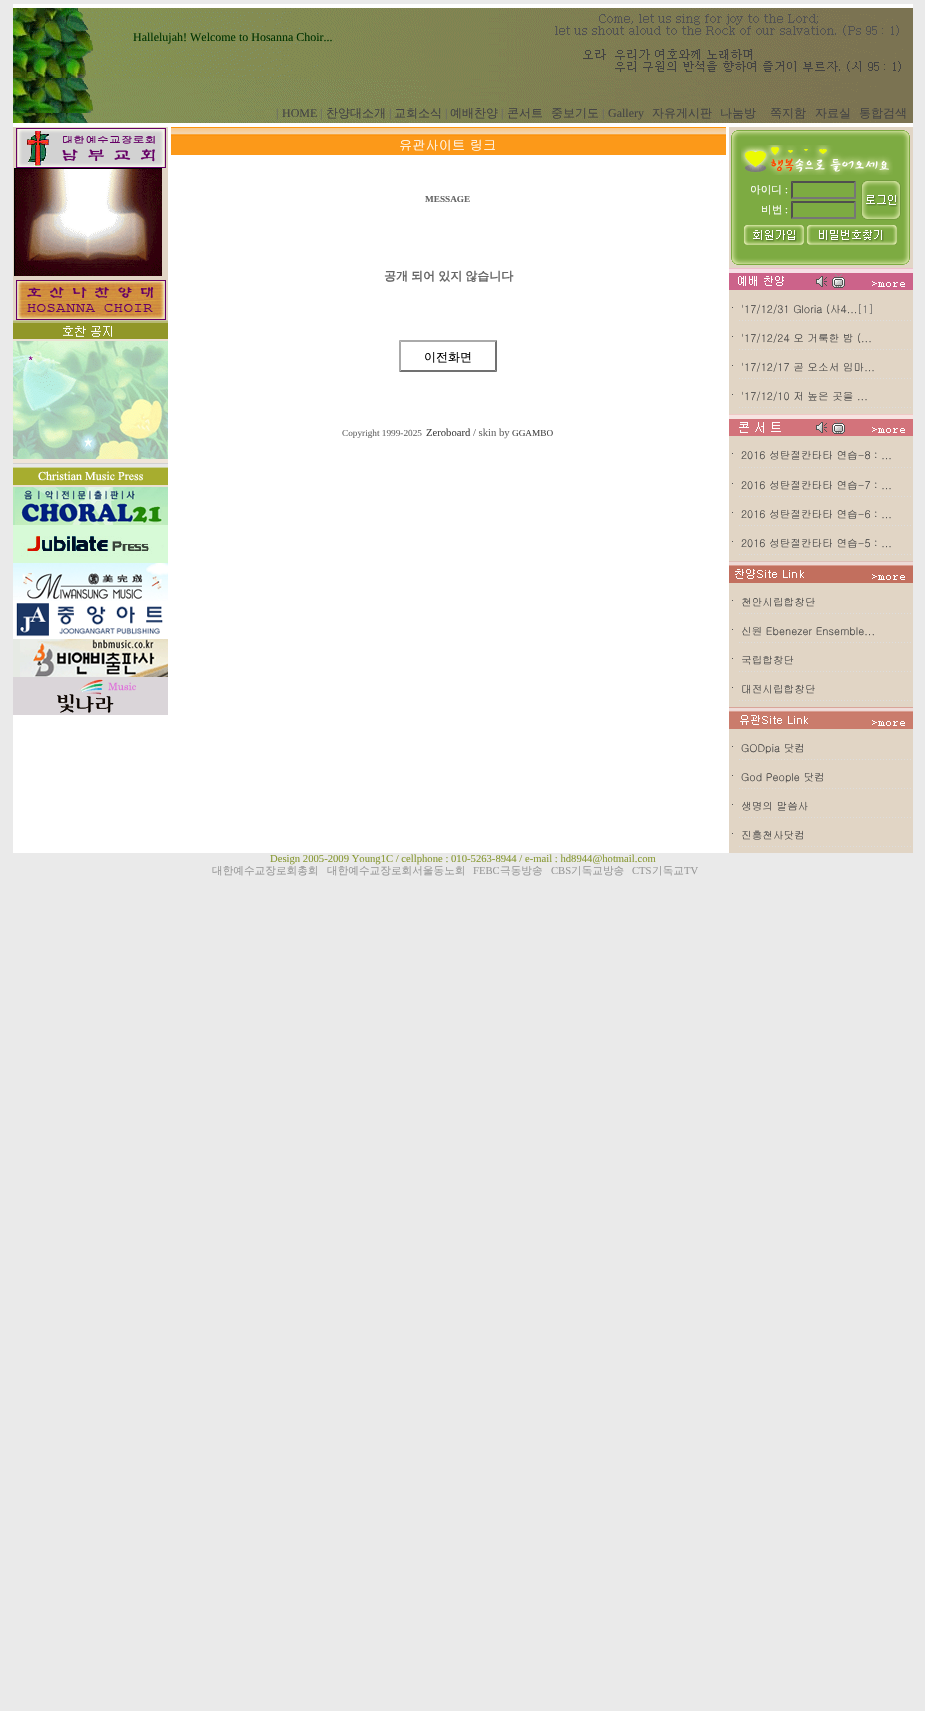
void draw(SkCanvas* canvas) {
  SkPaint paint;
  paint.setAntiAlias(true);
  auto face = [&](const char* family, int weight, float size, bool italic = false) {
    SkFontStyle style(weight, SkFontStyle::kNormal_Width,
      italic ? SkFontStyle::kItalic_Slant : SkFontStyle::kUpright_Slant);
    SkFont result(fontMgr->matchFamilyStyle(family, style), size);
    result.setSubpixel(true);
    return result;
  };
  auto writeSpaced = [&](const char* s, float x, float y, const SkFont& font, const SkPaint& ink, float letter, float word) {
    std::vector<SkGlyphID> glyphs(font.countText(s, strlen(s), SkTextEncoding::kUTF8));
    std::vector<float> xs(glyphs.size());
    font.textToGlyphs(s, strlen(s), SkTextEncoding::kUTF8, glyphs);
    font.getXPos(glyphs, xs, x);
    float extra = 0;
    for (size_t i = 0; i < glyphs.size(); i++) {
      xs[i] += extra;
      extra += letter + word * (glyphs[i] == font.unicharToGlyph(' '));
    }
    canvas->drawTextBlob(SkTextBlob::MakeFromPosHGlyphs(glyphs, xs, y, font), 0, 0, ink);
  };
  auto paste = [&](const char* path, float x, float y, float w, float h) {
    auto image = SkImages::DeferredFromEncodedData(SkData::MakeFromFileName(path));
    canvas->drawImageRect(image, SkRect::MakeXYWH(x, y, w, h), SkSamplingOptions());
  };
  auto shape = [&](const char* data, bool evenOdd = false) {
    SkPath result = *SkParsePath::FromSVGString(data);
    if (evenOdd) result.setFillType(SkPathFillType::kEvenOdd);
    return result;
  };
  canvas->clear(0xffeaeaea);
  paint.setColor(0xffffffff);
  canvas->drawRect(SkRect::MakeXYWH(13, 4, 900, 4), paint);
  paste("img/1.png", 13, 8, 900, 70);
  paste("img/2.png", 13, 78, 900, 45);
  canvas->drawRect(SkRect::MakeXYWH(13, 123, 900, 730), paint);
  paint.setColor(0xffe1d5c5);
  canvas->drawRect(SkRect::MakeXYWH(13, 127, 155, 193), paint);
  paste("img/3.png", 16, 128, 150, 40);
  paste("img/4.png", 14, 168, 148, 108);
  paste("img/5.png", 16, 280, 150, 40);
  paste("img/6.png", 13, 320, 155, 19);
  paint.setColor(0xffece1d2);
  canvas->drawRect(SkRect::MakeXYWH(13, 339, 155, 2), paint);
  paste("img/7.png", 13, 341, 155, 118);
  paint.setColor(0xffefe5d9);
  canvas->drawRect(SkRect::MakeXYWH(13, 459, 155, 4), paint);
  paste("img/8.png", 13, 463, 155, 22);
  paint.setColor(0xffece1d2);
  canvas->drawRect(SkRect::MakeXYWH(13, 485, 155, 2), paint);
  paste("img/9.png", 13, 487, 155, 38);
  paste("img/10.png", 13, 525, 155, 38);
  paste("img/11.png", 13, 563, 155, 38);
  paste("img/12.png", 13, 601, 155, 38);
  paste("img/13.png", 13, 639, 155, 38);
  paste("img/14.png", 13, 677, 155, 38);
  paste("img/15.png", 171, 127, 555, 28);
  paint.setColor(0xffaaaaaa);
  canvas->drawPath(shape("M399 340H497L495 342H401Z"), paint);
  paint.setColor(0xff717171);
  canvas->drawPath(shape("M497 340V372L495 370V342Z"), paint);
  canvas->drawPath(shape("M497 372H399L401 370H495Z"), paint);
  paint.setColor(0xffaaaaaa);
  canvas->drawPath(shape("M399 372V340L401 342V370Z"), paint);
  paint.setColor(0xffe1d5c5);
  canvas->drawRect(SkRect::MakeXYWH(729, 127, 184, 726), paint);
  paste("img/16.png", 731, 130, 179, 15);
  paste("img/17.png", 731, 145, 179, 106);
  paste("img/18.png", 741, 145, 152, 30);
  paint.setColor(0xff4f4f4f);
  canvas->drawPath(shape("M791 181H856L854 183H793Z"), paint);
  paint.setColor(0xff767676);
  canvas->drawPath(shape("M856 181V199L854 197V183Z"), paint);
  canvas->drawPath(shape("M856 199H791L793 197H854Z"), paint);
  paint.setColor(0xff4f4f4f);
  canvas->drawPath(shape("M791 199V181L793 183V197Z"), paint);
  canvas->drawPath(shape("M791 201H856L854 203H793Z"), paint);
  paint.setColor(0xff767676);
  canvas->drawPath(shape("M856 201V219L854 217V203Z"), paint);
  canvas->drawPath(shape("M856 219H791L793 217H854Z"), paint);
  paint.setColor(0xff4f4f4f);
  canvas->drawPath(shape("M791 219V201L793 203V217Z"), paint);
  paste("img/19.png", 861, 180, 40, 40);
  paste("img/20.png", 744, 225, 60, 20);
  paste("img/21.png", 807, 225, 90, 20);
  paste("img/22.png", 731, 251, 179, 14);
  paste("img/23.png", 729, 268, 184, 22);
  paste("img/24.png", 872, 281, 33, 6);
  paint.setColor(0xff525252);
  canvas->drawRect(SkRect::MakeXYWH(732, 307, 1, 1), paint);
  paste("img/25.png", 739, 320, 172, 1);
  canvas->drawRect(SkRect::MakeXYWH(732, 336, 1, 1), paint);
  paste("img/25.png", 739, 349, 172, 1);
  canvas->drawRect(SkRect::MakeXYWH(732, 365, 1, 1), paint);
  paste("img/25.png", 739, 378, 172, 1);
  canvas->drawRect(SkRect::MakeXYWH(732, 394, 1, 1), paint);
  paste("img/25.png", 739, 407, 172, 1);
  paste("img/26.png", 729, 414, 184, 22);
  paste("img/27.png", 872, 427, 33, 6);
  canvas->drawRect(SkRect::MakeXYWH(732, 453, 1, 1), paint);
  paste("img/25.png", 739, 467, 172, 1);
  canvas->drawRect(SkRect::MakeXYWH(732, 483, 1, 1), paint);
  paste("img/25.png", 739, 496, 172, 1);
  canvas->drawRect(SkRect::MakeXYWH(732, 512, 1, 1), paint);
  paste("img/25.png", 739, 525, 172, 1);
  canvas->drawRect(SkRect::MakeXYWH(732, 541, 1, 1), paint);
  paste("img/25.png", 739, 554, 172, 1);
  paste("img/28.png", 729, 561, 184, 22);
  paste("img/29.png", 872, 574, 33, 6);
  canvas->drawRect(SkRect::MakeXYWH(732, 600, 1, 1), paint);
  paste("img/25.png", 739, 613, 172, 1);
  canvas->drawRect(SkRect::MakeXYWH(732, 629, 1, 1), paint);
  paste("img/25.png", 739, 642, 172, 1);
  canvas->drawRect(SkRect::MakeXYWH(732, 658, 1, 1), paint);
  paste("img/25.png", 739, 671, 172, 1);
  canvas->drawRect(SkRect::MakeXYWH(732, 687, 1, 1), paint);
  paste("img/25.png", 739, 700, 172, 1);
  paste("img/30.png", 729, 707, 184, 22);
  paste("img/31.png", 872, 720, 33, 6);
  canvas->drawRect(SkRect::MakeXYWH(732, 746, 1, 1), paint);
  paste("img/25.png", 739, 759, 172, 1);
  canvas->drawRect(SkRect::MakeXYWH(732, 775, 1, 1), paint);
  paste("img/25.png", 739, 788, 172, 1);
  canvas->drawRect(SkRect::MakeXYWH(732, 804, 1, 1), paint);
  paste("img/25.png", 739, 817, 172, 1);
  canvas->drawRect(SkRect::MakeXYWH(732, 833, 1, 1), paint);
  paste("img/25.png", 739, 846, 172, 1);
  auto f0 = face("Liberation Serif", 400, 12);
  paint.setColor(0xff003300);
  canvas->drawString("Hallelujah! Welcome to Hosanna Choir...", 133, 41, f0, paint);
  paint.setColor(0xff666666);
  canvas->drawString("|", 276, 117, f0, paint);
  paint.setColor(0xff444444);
  canvas->drawString("HOME", 282, 117, f0, paint);
  paint.setColor(0xff666666);
  canvas->drawString("|", 320, 117, f0, paint);
  auto f1 = face("WenQuanYi Zen Hei", 500, 12);
  paint.setColor(0xff444444);
  canvas->drawString("찬양대소개", 326, 117, f1, paint);
  paint.setColor(0xff666666);
  canvas->drawString("|", 389, 117, f0, paint);
  paint.setColor(0xff444444);
  canvas->drawString("교회소식", 394, 117, f1, paint);
  paint.setColor(0xff666666);
  canvas->drawString("|", 445, 117, f0, paint);
  paint.setColor(0xff444444);
  canvas->drawString("예배찬양", 450, 117, f1, paint);
  paint.setColor(0xff666666);
  canvas->drawString("|", 501, 117, f0, paint);
  paint.setColor(0xff444444);
  canvas->drawString("콘서트", 507, 117, f1, paint);
  canvas->drawString("중보기도", 551, 117, f1, paint);
  paint.setColor(0xff666666);
  canvas->drawString("|", 602, 117, f0, paint);
  paint.setColor(0xff444444);
  canvas->drawString("Gallery", 608, 117, f0, paint);
  {
    const struct { const char* s; float x, y; } items[] = {
      {"자유게시판", 652, 117},
      {"나눔방", 720, 117},
      {"쪽지함", 770, 117},
      {"자료실", 815, 117},
      {"통합검색", 859, 117},
    };
    for (auto [s, x, y] : items) {
      canvas->drawString(s, x, y, f1, paint);
    }
  }
  auto f2 = face("Gulim", 400, 10.65f);
  paint.setColor(0xff800080);
  canvas->drawString("*", 28, 362, f2, paint);
  auto f3 = face("Gulim", 400, 13.25f);
  paint.setColor(0xffffffff);
  canvas->drawString("유관사이트 링크", 399, 150, f3, paint);
  auto f4 = face("Liberation Serif", 700, 9.25f);
  paint.setColor(0xff666666);
  canvas->drawString("MESSAGE", 425, 202, f4, paint);
  auto f5 = face("WenQuanYi Zen Hei", 700, 12);
  writeSpaced("공개 되어 있지 않습니다", 384, 280, f5, paint, 0, -0.5f);
  paint.setColor(0xff000000);
  canvas->drawString("이전화면", 424, 361, f1, paint);
  auto f6 = face("Liberation Serif", 400, 9.25f);
  paint.setColor(0xff666666);
  canvas->drawString("Copyright 1999-2025", 342, 436, f6, paint);
  auto f7 = face("Liberation Serif", 400, 10.65f);
  paint.setColor(0xff444444);
  canvas->drawString("Zeroboard", 426, 436, f7, paint);
  paint.setColor(0xff666666);
  canvas->drawString("/ skin by", 473, 436, f7, paint);
  paint.setColor(0xff444444);
  canvas->drawString("GGAMBO", 512, 436, f6, paint);
  auto f8 = face("WenQuanYi Zen Hei", 500, 10.65f);
  paint.setColor(0xffffffff);
  canvas->drawString("아이디", 750, 193, f8, paint);
  canvas->drawString(":", 785, 193, f7, paint);
  canvas->drawString("비번", 761, 213, f8, paint);
  canvas->drawString(":", 785, 213, f7, paint);
  paint.setColor(0xff444444);
  canvas->drawString("'17/12/31 Gloria (사4...", 741, 313, f2, paint);
  paint.setColor(0xff666666);
  canvas->drawString("[1]", 857, 313, f2, paint);
  paint.setColor(0xff444444);
  {
    const struct { const char* s; float x, y; } items[] = {
      {"'17/12/24 오 거룩한 밤 (...", 741, 342},
      {"'17/12/17 곧 오소서 임마...", 741, 371},
      {"'17/12/10 저 높은 곳을 ...", 741, 400},
      {"2016 성탄절칸타타 연습-8 : ...", 741, 459},
      {"2016 성탄절칸타타 연습-7 : ...", 741, 489},
      {"2016 성탄절칸타타 연습-6 : ...", 741, 518},
      {"2016 성탄절칸타타 연습-5 : ...", 741, 547},
      {"천안시립합창단", 741, 606},
      {"신원 Ebenezer Ensemble...", 741, 635},
      {"국립합창단", 741, 664},
      {"대전시립합창단", 741, 693},
      {"GODpia 닷컴", 741, 752},
      {"God People 닷컴", 741, 781},
      {"생명의 말씀사", 741, 810},
      {"진흥천사닷컴", 741, 839},
    };
    for (auto [s, x, y] : items) {
      canvas->drawString(s, x, y, f2, paint);
    }
  }
  paint.setColor(0xff889933);
  canvas->drawString("Design 2005-2009 Young1C / cellphone : 010-5263-8944 / e-mail : hd8944@hotmail.com", 270, 862, f7, paint);
  paint.setColor(0xff999999);
  canvas->drawString("대한예수교장로회총회", 212, 874, f8, paint);
  canvas->drawString("대한예수교장로회서울동노회", 327, 874, f8, paint);
  canvas->drawString("FEBC", 473, 874, f7, paint);
  canvas->drawString("극동방송", 500, 874, f8, paint);
  canvas->drawString("CBS", 551, 874, f7, paint);
  canvas->drawString("기독교방송", 571, 874, f8, paint);
  canvas->drawString("CTS", 632, 874, f7, paint);
  canvas->drawString("기독교", 652, 874, f8, paint);
  canvas->drawString("TV", 684, 874, f7, paint);
}
